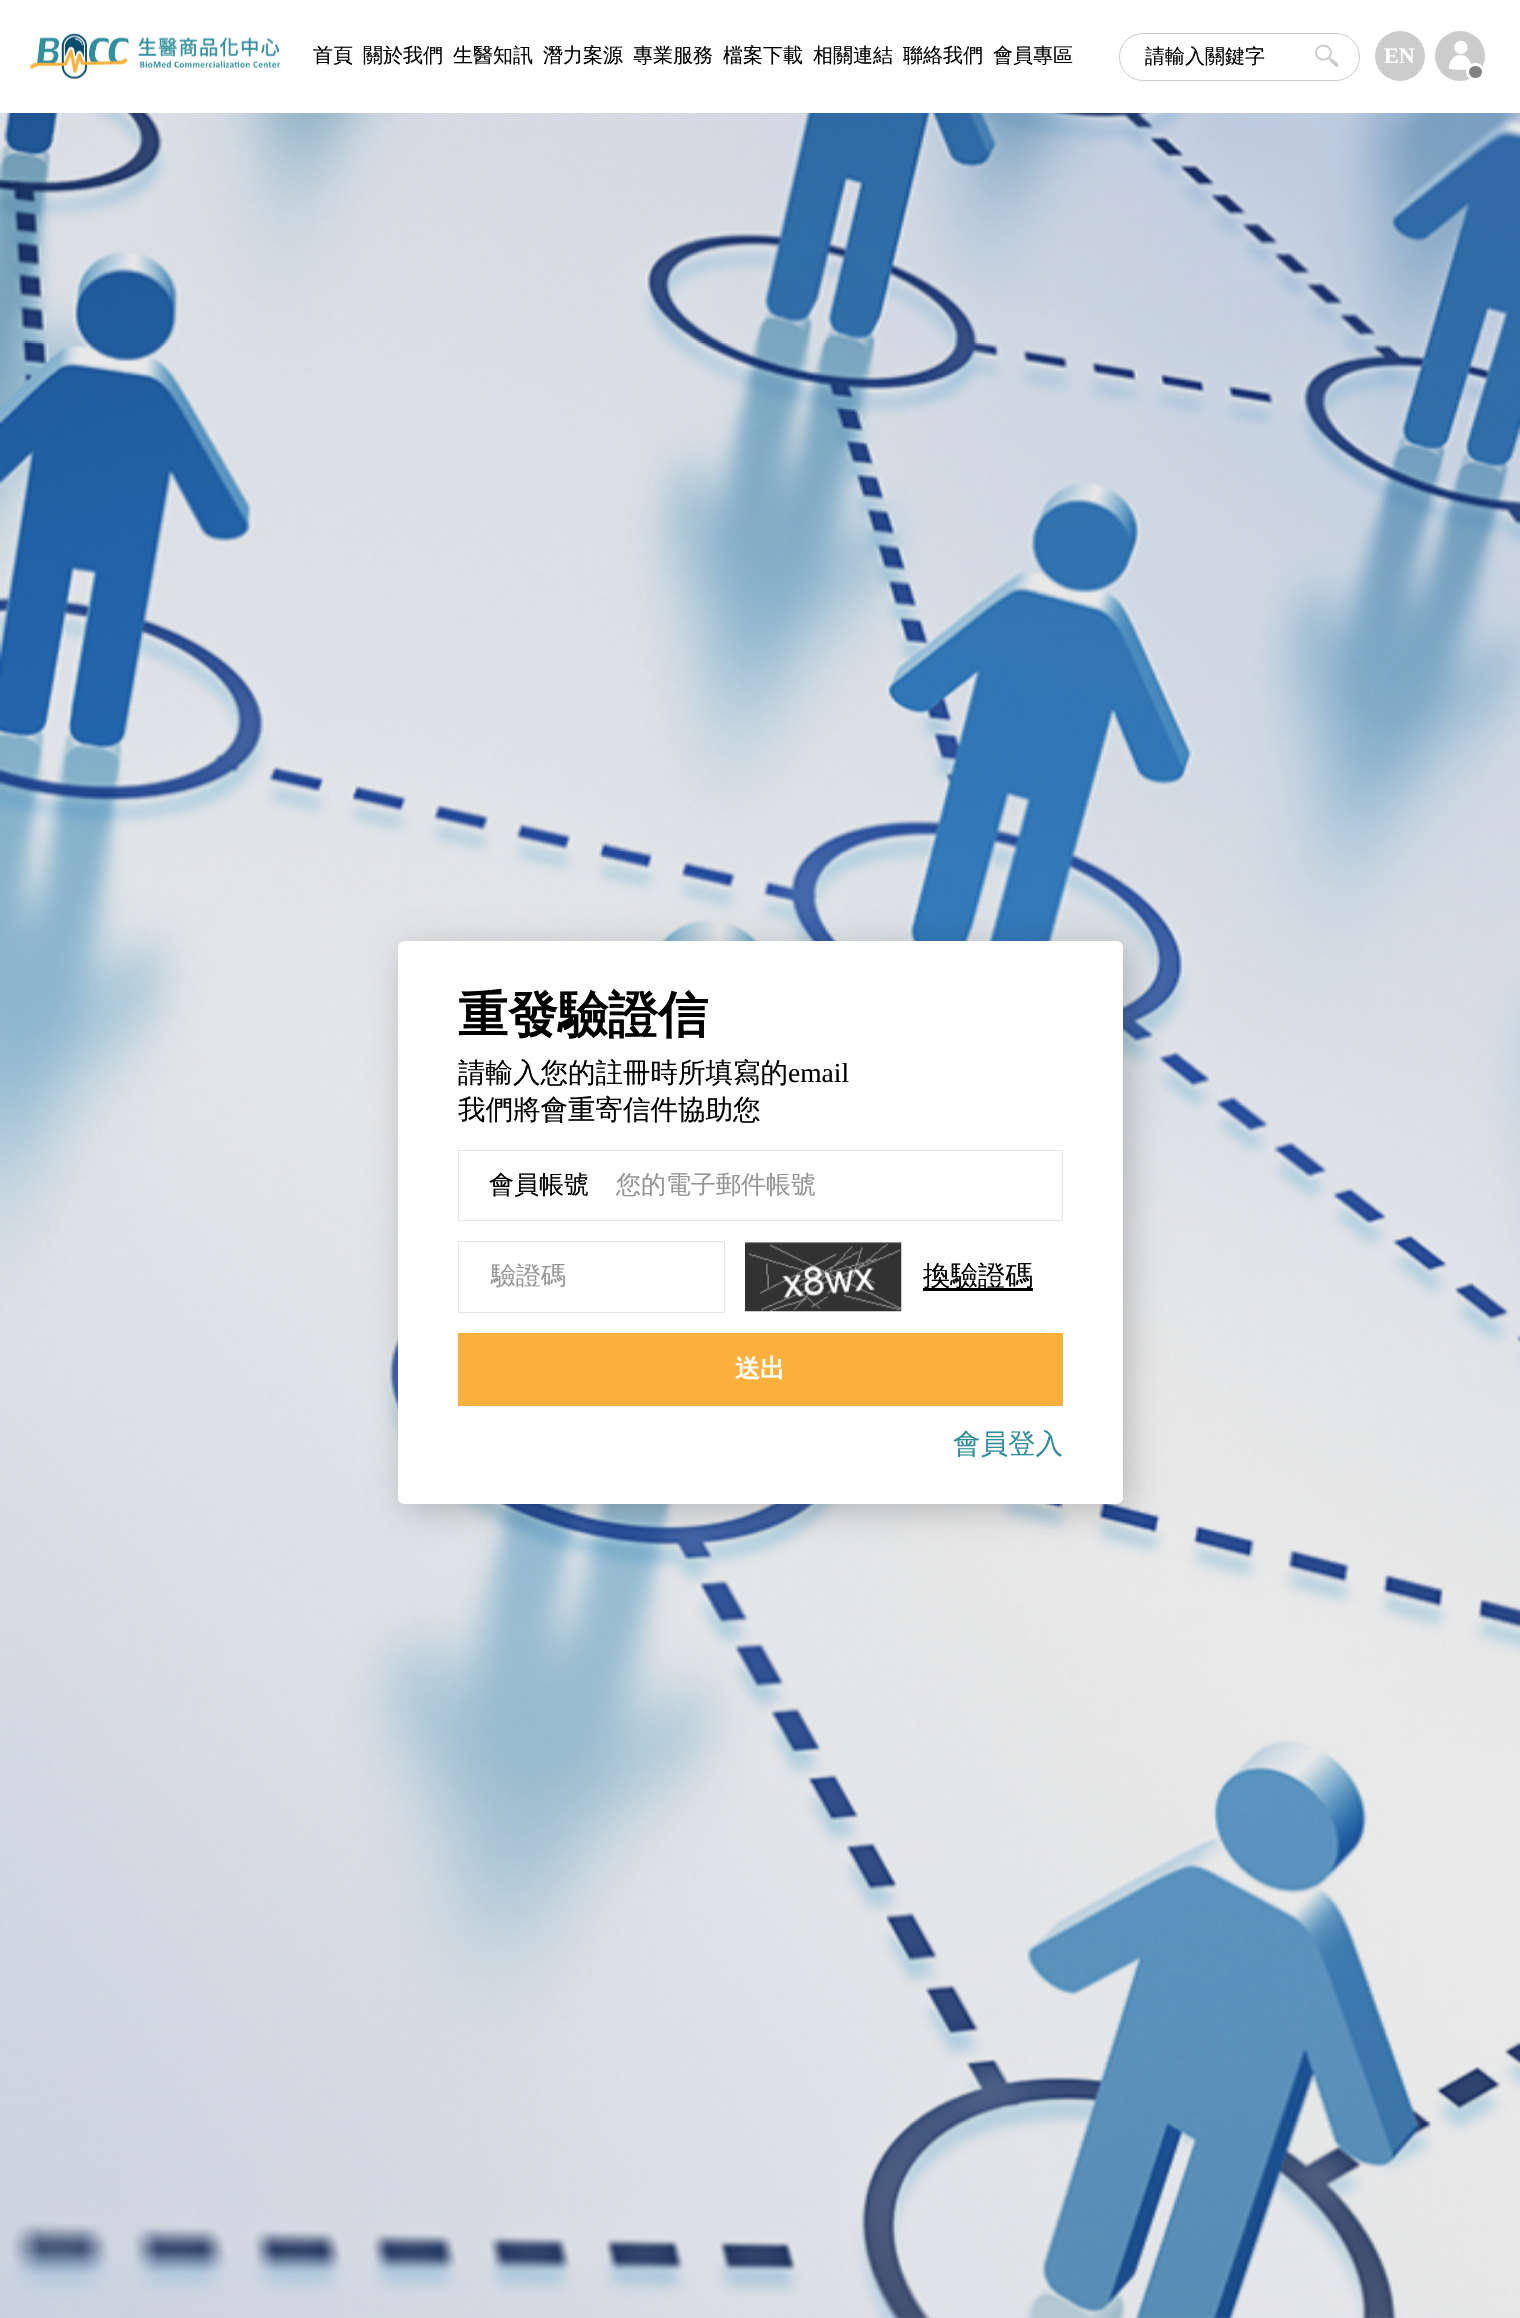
void draw(SkCanvas* canvas) {
  SkPaint paint;
  paint.setAntiAlias(true);
  auto face = [&](const char* family, int weight, float size, bool italic = false) {
    SkFontStyle style(weight, SkFontStyle::kNormal_Width,
      italic ? SkFontStyle::kItalic_Slant : SkFontStyle::kUpright_Slant);
    SkFont result(fontMgr->matchFamilyStyle(family, style), size);
    result.setSubpixel(true);
    return result;
  };
  auto paste = [&](const char* path, float x, float y, float w, float h) {
    auto image = SkImages::DeferredFromEncodedData(SkData::MakeFromFileName(path));
    canvas->drawImageRect(image, SkRect::MakeXYWH(x, y, w, h), SkSamplingOptions());
  };
  canvas->clear(0xffffffff);
  paste("img/1.png", 30, 33, 250, 46);
  paint.setStroke(true);
  paint.setStrokeWidth(1);
  paint.setColor(0xffcccccc);
  canvas->drawRoundRect(SkRect::MakeXYWH(1119.5f, 33.5f, 240, 47), 23.5f, 23.5f, paint);
  paste("img/2.png", 1315, 44, 24, 23);
  paint.setStroke(false);
  canvas->drawCircle(1400, 56, 25, paint);
  canvas->drawCircle(1460, 56, 25, paint);
  paste("img/3.png", 1448, 40, 23, 30);
  paint.setColor(0xff818181);
  canvas->drawRoundRect(SkRect::MakeXYWH(1467.5f, 64.5f, 16, 15), 7.5f, 7.5f, paint);
  paint.setStroke(true);
  paint.setStrokeWidth(3);
  paint.setColor(0xffffffff);
  canvas->drawRoundRect(SkRect::MakeXYWH(1467.5f, 64.5f, 16, 15), 7.5f, 7.5f, paint);
  paste("img/4.png", 0, 113, 1520, 2205);
  paint.setStroke(false);
  paint.setColor(0x36000000);
  paint.setMaskFilter(SkMaskFilter::MakeBlur(kNormal_SkBlurStyle, 17));
  canvas->drawRoundRect(SkRect::MakeXYWH(404, 948, 725, 562), 6, 6, paint);
  paint.setMaskFilter(nullptr);
  paint.setColor(0xffffffff);
  canvas->drawRoundRect(SkRect::MakeXYWH(398, 941, 725, 563), 6, 6, paint);
  paint.setStroke(true);
  paint.setStrokeWidth(1);
  paint.setColor(0xffe5e5e5);
  canvas->drawRect(SkRect::MakeXYWH(458.5f, 1150.5f, 604, 70), paint);
  canvas->drawRect(SkRect::MakeXYWH(458.5f, 1241.5f, 266, 71), paint);
  paste("img/5.png", 745, 1242, 157, 70);
  paint.setStroke(false);
  paint.setColor(0xff000000);
  canvas->drawRect(SkRect::MakeXYWH(923, 1288, 110, 3), paint);
  paint.setColor(0xfffbaf3d);
  canvas->drawRect(SkRect::MakeXYWH(458, 1333, 605, 73), paint);
  auto f0 = face("WenQuanYi Zen Hei", 500, 20);
  paint.setColor(0xff000000);
  {
    const struct { const char* s; float x, y; } items[] = {
      {"首頁", 313, 62},
      {"關於我們", 363, 62},
      {"生醫知訊", 453, 62},
      {"潛力案源", 543, 62},
      {"專業服務", 633, 62},
      {"檔案下載", 723, 62},
      {"相關連結", 813, 62},
      {"聯絡我們", 903, 62},
      {"會員專區", 993, 62},
      {"請輸入關鍵字", 1145, 63},
    };
    for (auto [s, x, y] : items) {
      canvas->drawString(s, x, y, f0, paint);
    }
  }
  auto f1 = face("Liberation Serif", 700, 22);
  paint.setColor(0xffffffff);
  canvas->drawString("EN", 1384, 63, f1, paint);
  auto f2 = face("WenQuanYi Zen Hei", 700, 50);
  paint.setColor(0xff000000);
  canvas->drawString("重發驗證信", 458, 1032, f2, paint);
  auto f3 = face("WenQuanYi Zen Hei", 500, 27.5f);
  canvas->drawString("請輸入您的註冊時所填寫的", 458, 1082, f3, paint);
  auto f4 = face("Liberation Serif", 400, 27.5f);
  canvas->drawString("email", 788, 1082, f4, paint);
  canvas->drawString("我們將會重寄信件協助您", 458, 1119, f3, paint);
  auto f5 = face("WenQuanYi Zen Hei", 500, 25);
  canvas->drawString("會員帳號", 489, 1193, f5, paint);
  paint.setColor(0xff959595);
  canvas->drawString("您的電子郵件帳號", 616, 1193, f5, paint);
  canvas->drawString("驗證碼", 491, 1284, f5, paint);
  paint.setColor(0xff000000);
  canvas->drawString("換驗證碼", 923, 1285, f3, paint);
  auto f6 = face("WenQuanYi Zen Hei", 700, 25);
  paint.setColor(0xffffffff);
  canvas->drawString("送出", 735, 1377, f6, paint);
  paint.setColor(0xff308d9b);
  canvas->drawString("會員登入", 953, 1453, f3, paint);
}
